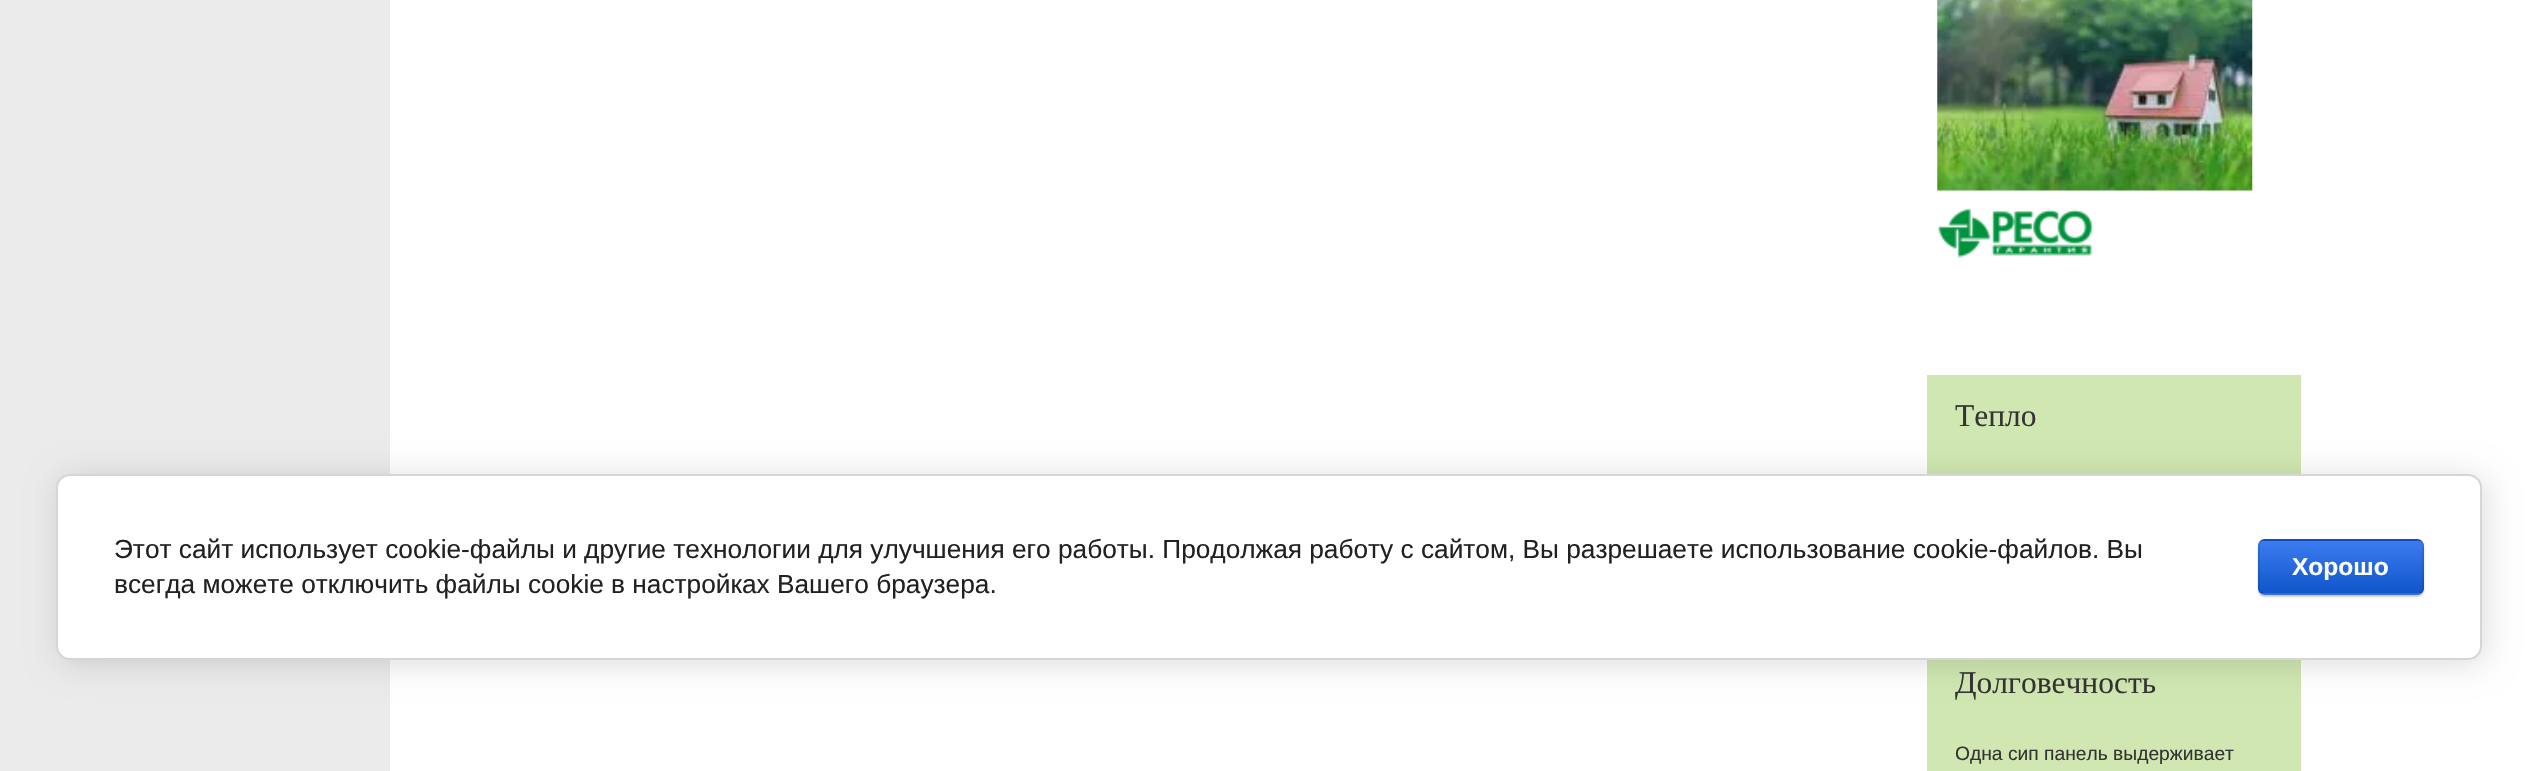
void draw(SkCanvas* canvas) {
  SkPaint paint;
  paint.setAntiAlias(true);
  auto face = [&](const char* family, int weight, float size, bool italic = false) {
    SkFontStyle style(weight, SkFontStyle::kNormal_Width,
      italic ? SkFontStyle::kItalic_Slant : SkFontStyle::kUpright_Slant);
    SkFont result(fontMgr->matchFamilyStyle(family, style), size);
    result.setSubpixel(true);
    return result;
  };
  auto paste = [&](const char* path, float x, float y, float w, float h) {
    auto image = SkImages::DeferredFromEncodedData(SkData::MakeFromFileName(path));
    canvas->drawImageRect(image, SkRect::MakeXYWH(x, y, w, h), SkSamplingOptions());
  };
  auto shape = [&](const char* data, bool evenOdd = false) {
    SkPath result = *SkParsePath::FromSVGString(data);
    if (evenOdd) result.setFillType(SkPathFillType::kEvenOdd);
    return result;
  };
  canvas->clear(0xffffffff);
  paint.setColor(0xffebebeb);
  canvas->drawRect(SkRect::MakeXYWH(0, 0, 390, 771), paint);
  paste("img/1.png", 1937, 0, 316, 191);
  paste("img/2.png", 1937, 207, 157, 51);
  paint.setColor(0xffd0e7b1);
  canvas->drawRect(SkRect::MakeXYWH(1927, 375, 374, 99), paint);
  canvas->drawRect(SkRect::MakeXYWH(1927, 660, 374, 111), paint);
  paint.setColor(0x24000000);
  paint.setMaskFilter(SkMaskFilter::MakeBlur(kNormal_SkBlurStyle, 16));
  canvas->drawRoundRect(SkRect::MakeXYWH(60, 478, 2425, 185), 14, 14, paint);
  paint.setMaskFilter(nullptr);
  paint.setColor(0xffffffff);
  canvas->drawRoundRect(SkRect::MakeXYWH(57, 475, 2424, 184), 13, 13, paint);
  paint.setStroke(true);
  paint.setStrokeWidth(2);
  paint.setColor(0xffd6d6d6);
  canvas->drawRoundRect(SkRect::MakeXYWH(57, 475, 2424, 184), 13, 13, paint);
  paint.setStroke(false);
  paint.setColor(0x33000000);
  paint.setMaskFilter(SkMaskFilter::MakeBlur(kNormal_SkBlurStyle, 1));
  canvas->drawRoundRect(SkRect::MakeXYWH(2258, 541, 166, 56), 7, 7, paint);
  paint.setMaskFilter(nullptr);
  canvas->save();
  canvas->clipPath(shape("M2265 539H2417C2421 539 2424 542 2424 546V588C2424 592 2421 595 2417 595H2265C2261 595 2258 592 2258 588V546C2258 542 2261 539 2265 539Z"), true);
  {
    const SkColor colors[] = {0xff3b7cef, 0xff1155cc};
    const float stops[] = {0, 1};
    const SkPoint ends[] = {{2341, 488}, {2341, 541}};
    paint.setShader(SkGradientShader::MakeLinear(ends, colors, stops, 2, SkTileMode::kClamp));
    paint.setAlpha(255);
  }
  canvas->drawRect(SkRect::MakeXYWH(2258, 539, 166, 2), paint);
  {
    const SkColor colors[] = {0xff3b7cef, 0xff1155cc};
    const float stops[] = {0, 1};
    const SkPoint ends[] = {{2341, 541}, {2341, 593}};
    paint.setShader(SkGradientShader::MakeLinear(ends, colors, stops, 2, SkTileMode::kClamp));
    paint.setAlpha(255);
  }
  canvas->drawRect(SkRect::MakeXYWH(2258, 541, 166, 52), paint);
  {
    const SkColor colors[] = {0xff3b7cef, 0xff1155cc};
    const float stops[] = {0, 1};
    const SkPoint ends[] = {{2341, 593}, {2341, 646}};
    paint.setShader(SkGradientShader::MakeLinear(ends, colors, stops, 2, SkTileMode::kClamp));
    paint.setAlpha(255);
  }
  canvas->drawRect(SkRect::MakeXYWH(2258, 593, 166, 2), paint);
  canvas->restore();
  paint.setStroke(true);
  paint.setShader(nullptr);
  paint.setColor(0x1a000000);
  canvas->drawRoundRect(SkRect::MakeXYWH(2259, 540, 164, 54), 6, 6, paint);
  auto f0 = face("Liberation Serif", 400, 31.5f);
  paint.setStroke(false);
  paint.setColor(0xff333333);
  canvas->drawString("Тепло", 1955, 426, f0, paint);
  canvas->drawString("Долговечность", 1955, 693, f0, paint);
  auto f1 = face("Liberation Sans", 400, 19.25f);
  canvas->drawString("Одна сип панель выдерживает", 1955, 760, f1, paint);
  auto f2 = face("Liberation Sans", 400, 26.25f);
  paint.setColor(0xff212121);
  canvas->drawString("Этот сайт использует cookie-файлы и другие технологии для улучшения его работы. Продолжая работу с сайтом, Вы разрешаете использование cookie-файлов. Вы", 114, 558, f2, paint);
  canvas->drawString("всегда можете отключить файлы cookie в настройках Вашего браузера.", 114, 593, f2, paint);
  auto f3 = face("Liberation Sans", 700, 24.5f);
  paint.setColor(0xffffffff);
  canvas->drawString("Хорошо", 2292, 575, f3, paint);
}
